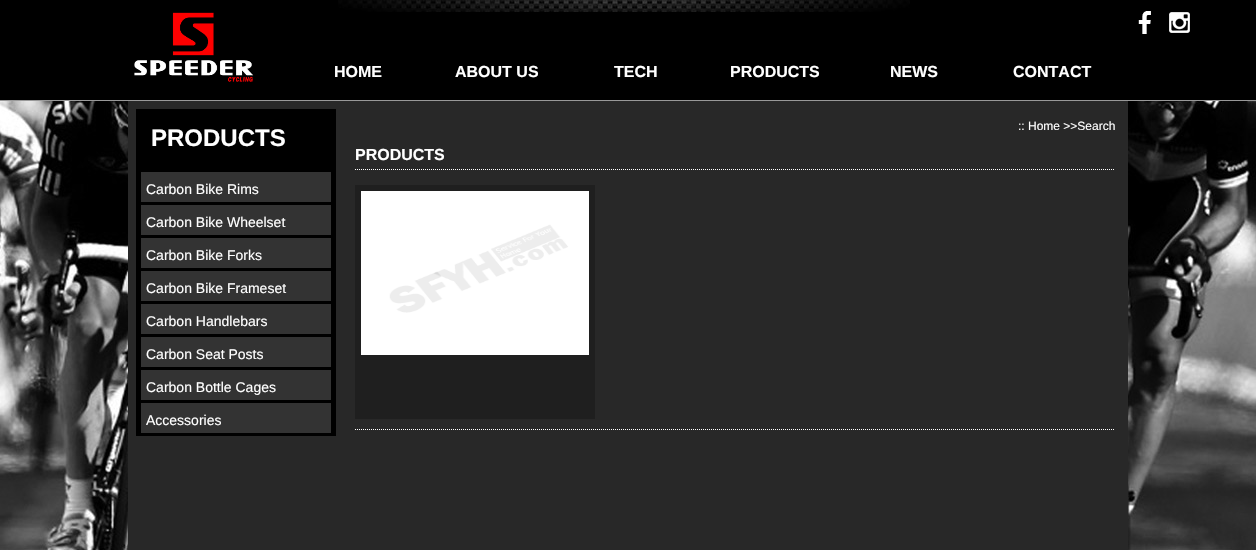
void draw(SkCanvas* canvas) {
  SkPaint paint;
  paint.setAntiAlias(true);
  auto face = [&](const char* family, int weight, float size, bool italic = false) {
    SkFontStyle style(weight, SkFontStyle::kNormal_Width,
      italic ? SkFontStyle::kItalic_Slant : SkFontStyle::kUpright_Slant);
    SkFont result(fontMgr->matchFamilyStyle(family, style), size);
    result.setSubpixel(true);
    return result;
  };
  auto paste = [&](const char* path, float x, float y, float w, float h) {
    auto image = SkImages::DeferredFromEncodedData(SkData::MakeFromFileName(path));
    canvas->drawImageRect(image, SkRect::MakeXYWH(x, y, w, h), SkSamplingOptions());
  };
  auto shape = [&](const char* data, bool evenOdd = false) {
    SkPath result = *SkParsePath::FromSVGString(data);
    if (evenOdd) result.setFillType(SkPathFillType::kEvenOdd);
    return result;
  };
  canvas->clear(0xffffffff);
  paste("img/1.png", 0, 101, 1256, 449);
  paint.setColor(0xff000000);
  canvas->drawRect(SkRect::MakeXYWH(0, 0, 1256, 100), paint);
  paint.setColor(0xff999999);
  canvas->drawRect(SkRect::MakeXYWH(0, 100, 1256, 1), paint);
  paste("img/2.png", 338, 0, 572, 12);
  paste("img/3.png", 134, 12, 120, 70);
  paste("img/4.png", 1138, 11, 13, 23);
  paste("img/5.png", 1169, 12, 21, 21);
  {
    const struct { float x, y, w, h; SkColor color; } items[] = {
      {128, 101, 1000, 449, 0xff282828},
      {136, 109, 200, 327, 0xff000000},
      {141, 172, 190, 30, 0xff333333},
      {141, 205, 190, 30, 0xff333333},
      {141, 238, 190, 30, 0xff333333},
      {141, 271, 190, 30, 0xff333333},
      {141, 304, 190, 30, 0xff333333},
      {141, 337, 190, 30, 0xff333333},
      {141, 370, 190, 30, 0xff333333},
      {141, 403, 190, 30, 0xff333333},
    };
    for (auto [x, y, w, h, color] : items) {
      paint.setColor(color);
      canvas->drawRect(SkRect::MakeXYWH(x, y, w, h), paint);
    }
  }
  paint.setStroke(true);
  paint.setStrokeWidth(1);
  paint.setColor(0xffffffff);
  paint.setPathEffect(SkDashPathEffect::Make({{1, 1}}, 0));
  canvas->drawPath(shape("M355 169.5H1115"), paint);
  paint.setPathEffect(nullptr);
  paint.setStroke(false);
  paint.setColor(0xff1f1f1f);
  canvas->drawRect(SkRect::MakeXYWH(355, 185, 240, 234), paint);
  paste("img/6.png", 361, 191, 228, 164);
  paint.setStroke(true);
  paint.setColor(0xffffffff);
  paint.setPathEffect(SkDashPathEffect::Make({{1, 1}}, 0));
  canvas->drawPath(shape("M355 429.5H1115"), paint);
  paint.setPathEffect(nullptr);
  auto f0 = face("Liberation Sans", 700, 16);
  paint.setStroke(false);
  {
    const struct { const char* s; float x, y; } items[] = {
      {"HOME", 334, 77},
      {"ABOUT US", 455, 77},
      {"TECH", 614, 77},
      {"PRODUCTS", 730, 77},
      {"NEWS", 890, 77},
      {"CONTACT", 1013, 77},
    };
    for (auto [s, x, y] : items) {
      canvas->drawString(s, x, y, f0, paint);
    }
  }
  auto f1 = face("Liberation Sans", 700, 24);
  canvas->drawString("PRODUCTS", 151, 146, f1, paint);
  auto f2 = face("Liberation Sans", 400, 14);
  {
    const struct { const char* s; float x, y; } items[] = {
      {"Carbon Bike Rims", 146, 194},
      {"Carbon Bike Wheelset", 146, 227},
      {"Carbon Bike Forks", 146, 260},
      {"Carbon Bike Frameset", 146, 293},
      {"Carbon Handlebars", 146, 326},
      {"Carbon Seat Posts", 146, 359},
      {"Carbon Bottle Cages", 146, 392},
      {"Accessories", 146, 425},
    };
    for (auto [s, x, y] : items) {
      canvas->drawString(s, x, y, f2, paint);
    }
  }
  auto f3 = face("Liberation Sans", 400, 12);
  canvas->drawString(":: Home >>Search", 1018, 130, f3, paint);
  canvas->drawString("PRODUCTS", 355, 160, f0, paint);
}
